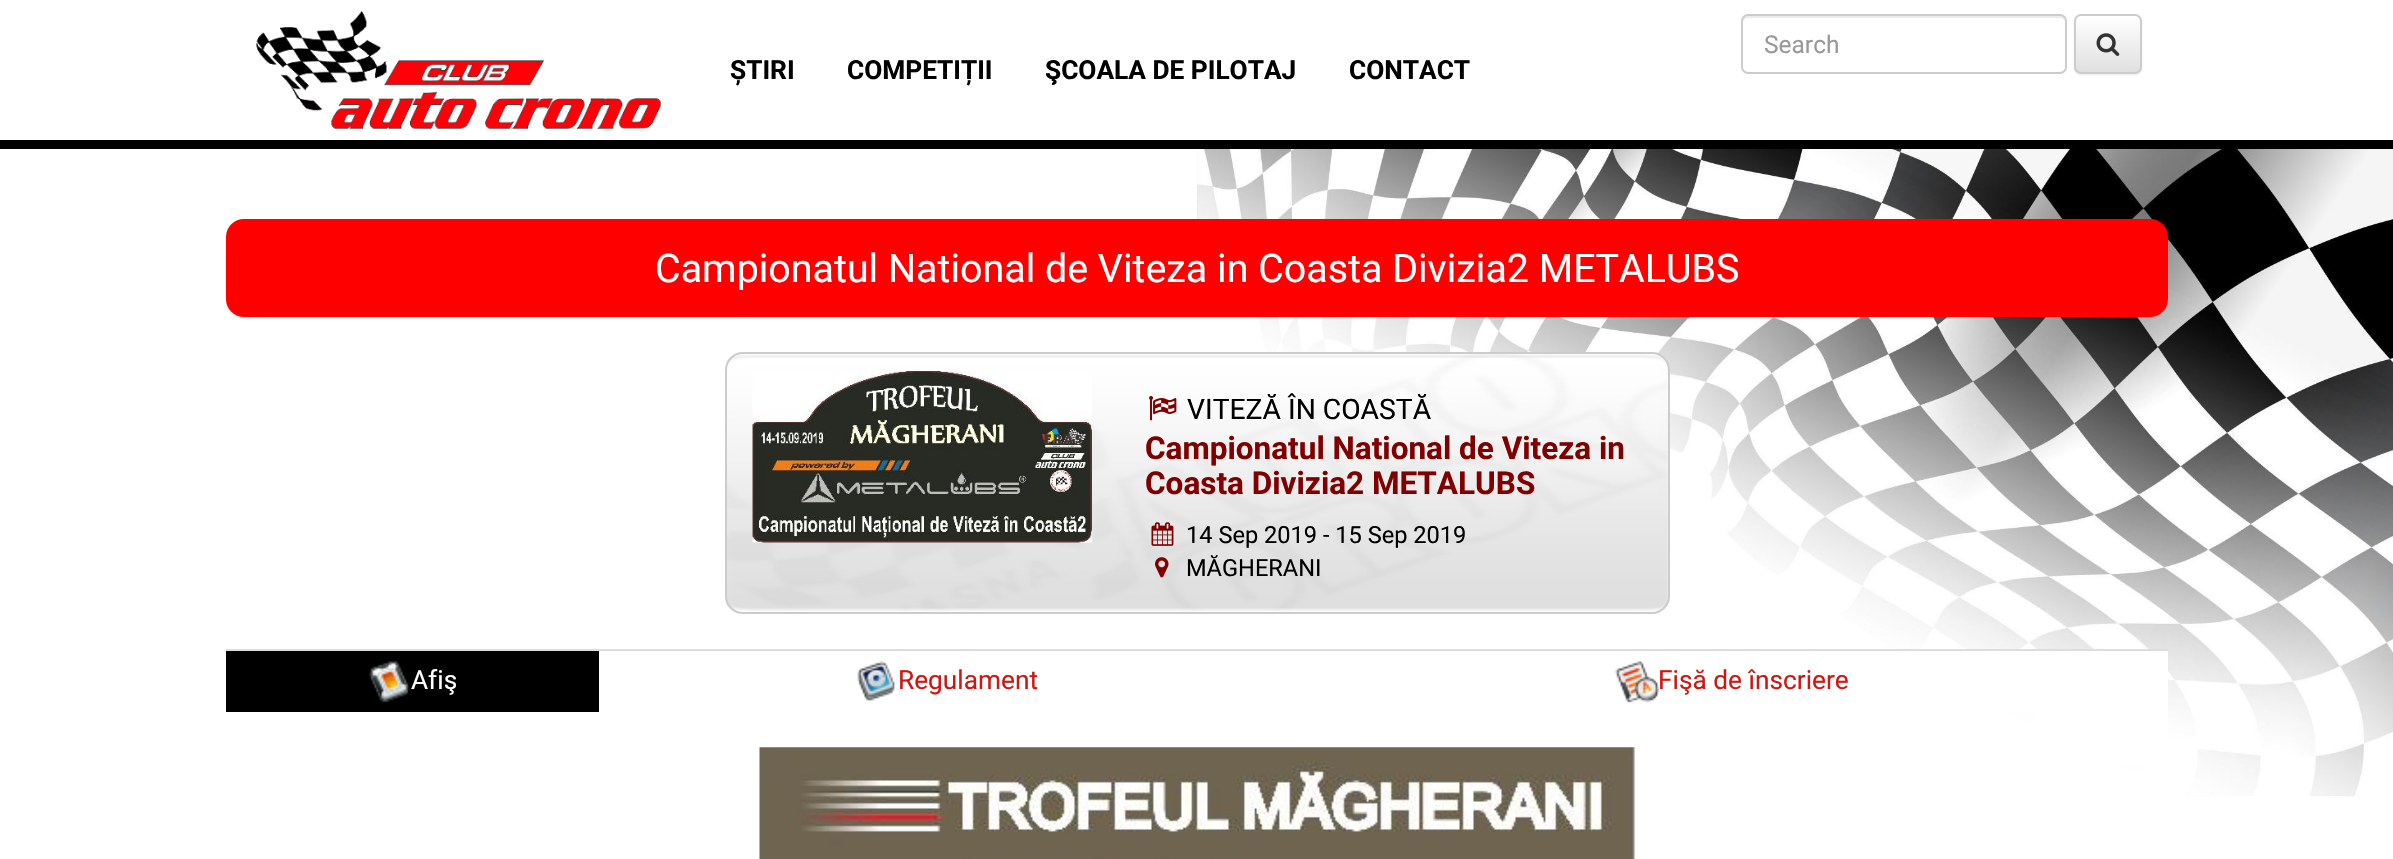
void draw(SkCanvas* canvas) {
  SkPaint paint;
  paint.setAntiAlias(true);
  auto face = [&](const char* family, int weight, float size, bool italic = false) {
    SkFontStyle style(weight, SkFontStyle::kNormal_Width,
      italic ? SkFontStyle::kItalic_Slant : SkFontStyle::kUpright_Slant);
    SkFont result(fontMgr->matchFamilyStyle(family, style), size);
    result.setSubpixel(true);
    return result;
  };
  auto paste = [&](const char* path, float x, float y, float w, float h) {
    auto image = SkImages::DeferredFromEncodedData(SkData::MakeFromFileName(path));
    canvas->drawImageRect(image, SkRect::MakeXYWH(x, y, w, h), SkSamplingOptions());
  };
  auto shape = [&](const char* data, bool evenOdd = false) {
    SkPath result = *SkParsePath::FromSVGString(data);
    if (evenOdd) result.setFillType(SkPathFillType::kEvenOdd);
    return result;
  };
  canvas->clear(0xffffffff);
  paste("img/1.png", 1197, 149, 1196, 648);
  paint.setColor(0xff000000);
  canvas->drawRect(SkRect::MakeXYWH(0, 140, 2393, 9), paint);
  paste("img/2.png", 256, 11, 405, 119);
  paint.setColor(0xffececec);
  canvas->drawPath(shape("M1748 18H2060C2063 18 2065 20 2065 23V21C2065 18 2063 16 2060 16H1748C1745 16 1743 18 1743 21V23C1743 20 1745 18 1748 18Z"), paint);
  paint.setStroke(true);
  paint.setStrokeWidth(2);
  paint.setColor(0xffcccccc);
  canvas->drawRoundRect(SkRect::MakeXYWH(1742, 15, 324, 58), 6, 6, paint);
  paint.setStroke(false);
  paint.setColor(0x12000000);
  paint.setMaskFilter(SkMaskFilter::MakeBlur(kNormal_SkBlurStyle, 1));
  canvas->drawRoundRect(SkRect::MakeXYWH(2074, 16, 68, 59), 7, 7, paint);
  paint.setMaskFilter(nullptr);
  canvas->save();
  canvas->clipPath(shape("M2081 14H2135C2139 14 2142 17 2142 21V67C2142 71 2139 74 2135 74H2081C2077 74 2074 71 2074 67V21C2074 17 2077 14 2081 14Z"), true);
  {
    const SkColor colors[] = {0xffffffff, 0xffe0e0e0};
    const float stops[] = {0, 1};
    const SkPoint ends[] = {{2108, 16}, {2108, 72}};
    paint.setShader(SkGradientShader::MakeLinear(ends, colors, stops, 2, SkTileMode::kClamp));
    paint.setAlpha(255);
  }
  canvas->drawRect(SkRect::MakeXYWH(2074, 16, 68, 56), paint);
  canvas->restore();
  paint.setStroke(true);
  paint.setShader(nullptr);
  paint.setColor(0xffcccccc);
  canvas->drawRoundRect(SkRect::MakeXYWH(2075, 15, 66, 58), 6, 6, paint);
  paste("img/3.png", 2096, 33, 24, 23);
  paint.setStroke(false);
  paint.setColor(0xffff0000);
  canvas->drawRoundRect(SkRect::MakeXYWH(226, 219, 1942, 98), 18, 18, paint);
  paste("img/4.png", 726, 353, 942, 259);
  paint.setStroke(true);
  paint.setColor(0xffcccccc);
  canvas->drawRoundRect(SkRect::MakeXYWH(726, 353, 943, 260), 17, 17, paint);
  paste("img/5.png", 752, 371, 340, 172);
  paste("img/6.png", 1149, 396, 28, 25);
  paste("img/7.png", 1151, 522, 23, 24);
  paste("img/8.png", 1155, 557, 14, 21);
  paint.setStroke(false);
  paint.setColor(0xffffffff);
  canvas->drawRect(SkRect::MakeXYWH(1903, 651, 265, 61), paint);
  paint.setColor(0xff000000);
  canvas->drawRect(SkRect::MakeXYWH(226, 651, 373, 61), paint);
  paste("img/9.png", 369, 661, 41, 42);
  paste("img/10.png", 857, 661, 38, 40);
  paint.setColor(0xffdddddd);
  canvas->drawRect(SkRect::MakeXYWH(226, 649, 1942, 2), paint);
  paste("img/11.png", 1615, 661, 44, 42);
  paint.setColor(0xffffffff);
  canvas->drawRect(SkRect::MakeXYWH(2035, 712, 133, 52), paint);
  paste("img/12.png", 759, 747, 876, 112);
  auto f0 = face("Roboto", 400, 24.5f);
  paint.setColor(0xff999999);
  canvas->drawString("Search", 1764, 53, f0, paint);
  auto f1 = face("Roboto", 700, 26.25f);
  paint.setColor(0xff000000);
  {
    const struct { const char* s; float x, y; } items[] = {
      {"ȘTIRI", 730, 79},
      {"COMPETIȚII", 847, 79},
      {"ŞCOALA DE PILOTAJ", 1045, 79},
      {"CONTACT", 1349, 79},
    };
    for (auto [s, x, y] : items) {
      canvas->drawString(s, x, y, f1, paint);
    }
  }
  auto f2 = face("Roboto", 400, 39.4f);
  paint.setColor(0xffffffff);
  canvas->drawString("Campionatul National de Viteza in Coasta Divizia2 METALUBS", 655, 282, f2, paint);
  auto f3 = face("Roboto", 400, 28.25f);
  paint.setColor(0xff000000);
  canvas->drawString("VITEZĂ ÎN COASTĂ", 1187, 419, f3, paint);
  auto f4 = face("Roboto", 700, 31.5f);
  paint.setColor(0xff800000);
  canvas->drawString("Campionatul National de Viteza in", 1145, 459, f4, paint);
  canvas->drawString("Coasta Divizia2 METALUBS", 1145, 494, f4, paint);
  auto f5 = face("Roboto", 400, 23.6f);
  paint.setColor(0xff000000);
  canvas->drawString("14 Sep 2019 - 15 Sep 2019", 1186, 543, f5, paint);
  canvas->drawString("MĂGHERANI", 1186, 576, f5, paint);
  auto f6 = face("Roboto", 400, 26.25f);
  paint.setColor(0xffffffff);
  canvas->drawString("Afiş", 411, 689, f6, paint);
  paint.setColor(0xffce1612);
  canvas->drawString("Regulament", 898, 689, f6, paint);
  canvas->drawString("Fişă de înscriere", 1658, 689, f6, paint);
}
